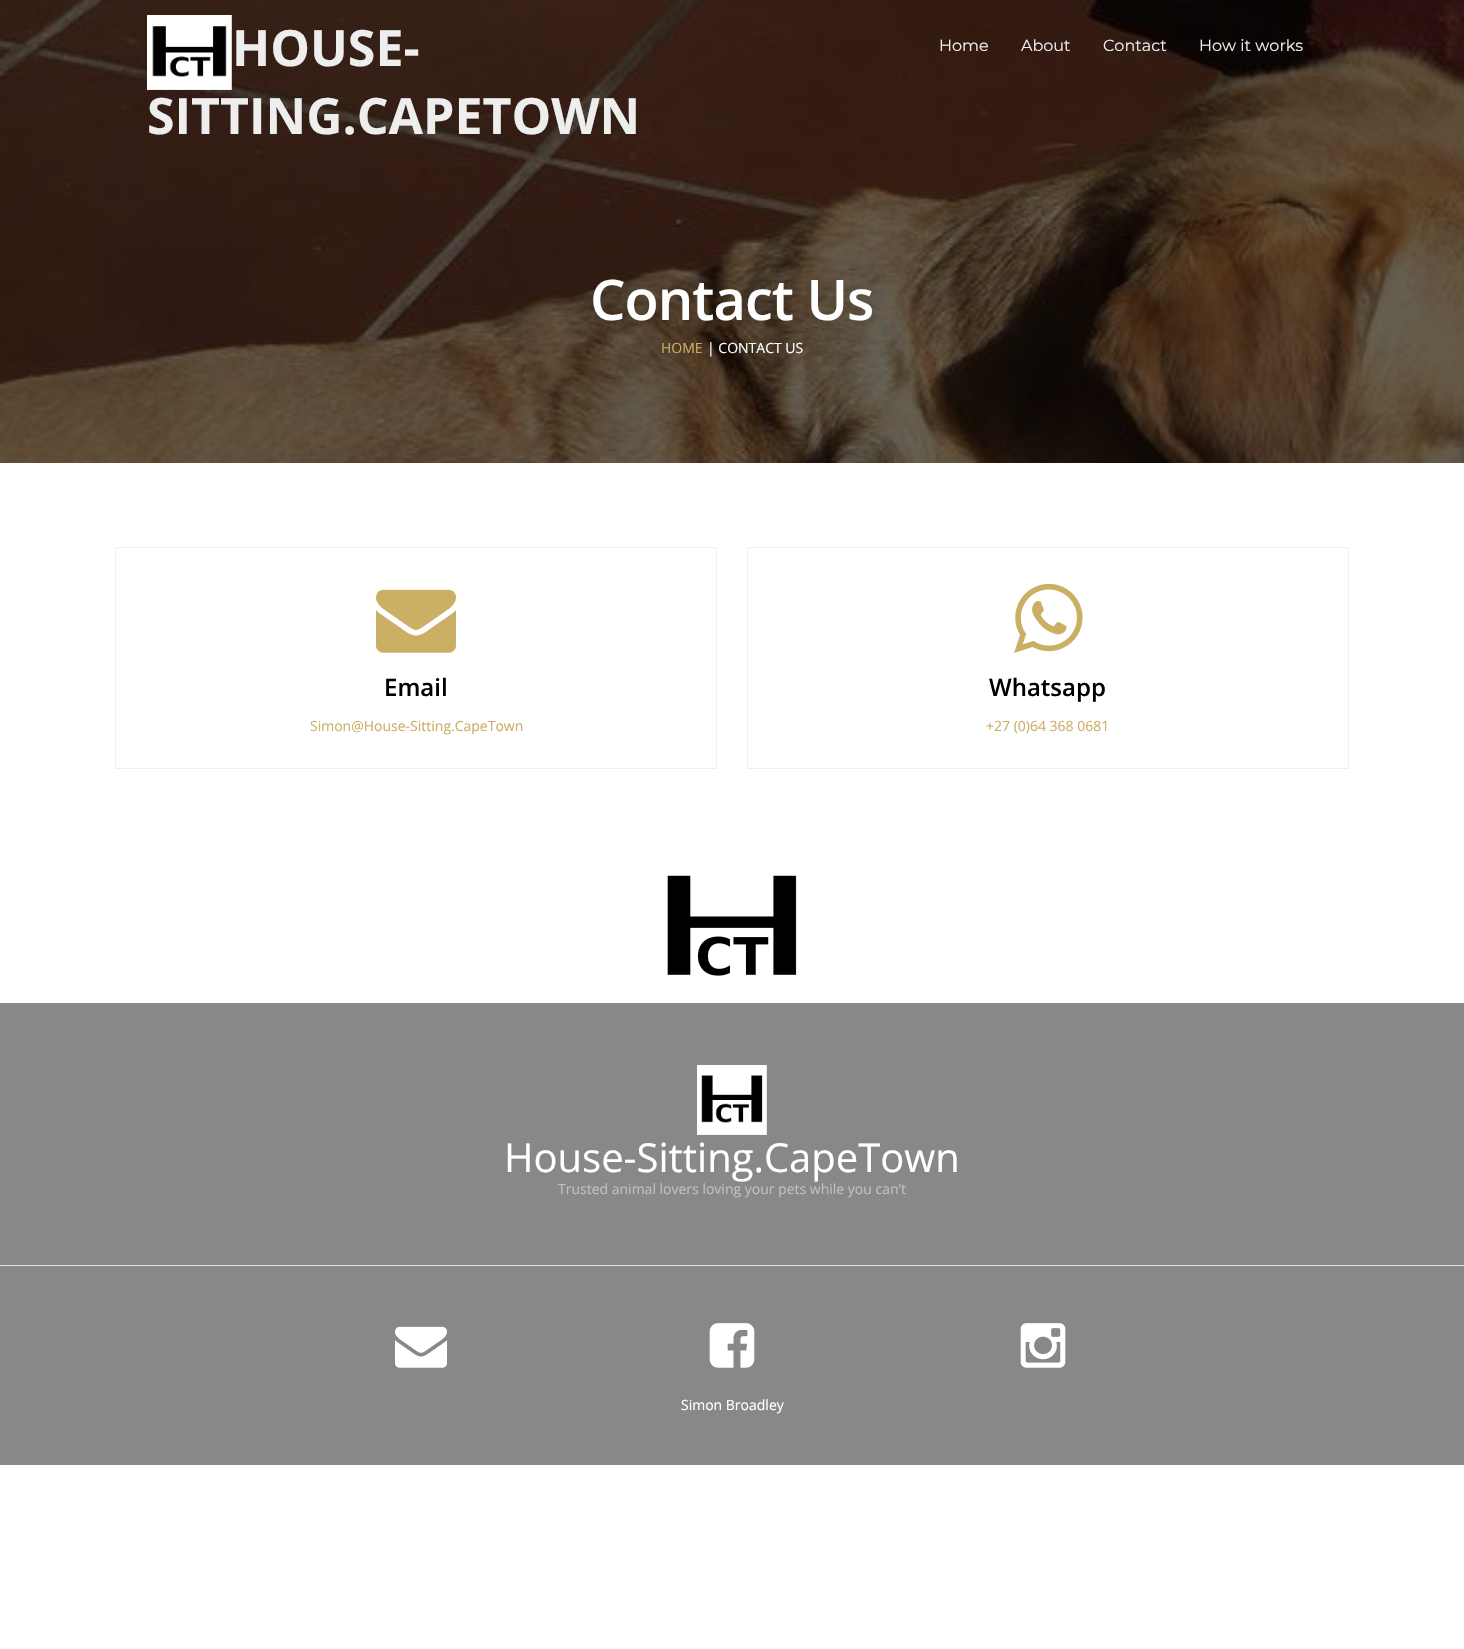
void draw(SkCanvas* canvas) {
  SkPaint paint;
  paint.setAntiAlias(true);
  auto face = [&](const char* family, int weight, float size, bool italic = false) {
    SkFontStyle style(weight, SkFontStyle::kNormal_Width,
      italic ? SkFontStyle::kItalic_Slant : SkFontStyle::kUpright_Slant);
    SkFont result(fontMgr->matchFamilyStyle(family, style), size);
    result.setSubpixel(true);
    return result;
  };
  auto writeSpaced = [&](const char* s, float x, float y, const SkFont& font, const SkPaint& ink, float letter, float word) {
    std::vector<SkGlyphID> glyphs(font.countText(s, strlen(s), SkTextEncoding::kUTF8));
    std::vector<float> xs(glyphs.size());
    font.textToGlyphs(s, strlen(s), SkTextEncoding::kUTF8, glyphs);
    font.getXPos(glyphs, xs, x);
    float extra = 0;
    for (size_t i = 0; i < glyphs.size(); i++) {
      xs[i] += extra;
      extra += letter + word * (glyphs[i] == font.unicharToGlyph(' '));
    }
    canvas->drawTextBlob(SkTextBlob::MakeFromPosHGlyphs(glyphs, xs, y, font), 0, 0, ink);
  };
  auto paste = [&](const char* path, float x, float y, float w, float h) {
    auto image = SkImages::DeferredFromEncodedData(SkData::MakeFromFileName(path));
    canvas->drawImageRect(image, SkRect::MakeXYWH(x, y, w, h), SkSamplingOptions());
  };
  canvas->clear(0xffffffff);
  paste("img/2.png", 0, 0, 1464, 463);
  paste("img/1.png", 147, 15, 85, 75);
  paint.setStroke(true);
  paint.setStrokeWidth(1);
  paint.setColor(0xffeeeeee);
  canvas->drawRect(SkRect::MakeXYWH(115.5f, 547.5f, 601, 221), paint);
  paste("img/3.png", 376, 589, 80, 64);
  canvas->drawRect(SkRect::MakeXYWH(747.5f, 547.5f, 601, 221), paint);
  paste("img/4.png", 1014, 583, 69, 70);
  paste("img/5.png", 667, 875, 130, 101);
  paint.setStroke(false);
  paint.setColor(0xff888888);
  canvas->drawRect(SkRect::MakeXYWH(0, 1003, 1464, 262), paint);
  paste("img/6.png", 697, 1065, 70, 70);
  canvas->drawRect(SkRect::MakeXYWH(0, 1266, 1464, 199), paint);
  paint.setColor(0xffe0e0e0);
  canvas->drawRect(SkRect::MakeXYWH(0, 1265, 1464, 1), paint);
  paste("img/7.png", 395, 1326, 52, 42);
  paste("img/8.png", 709, 1323, 46, 45);
  paste("img/9.png", 1020, 1323, 46, 45);
  auto f0 = face("Open Sans", 700, 50);
  paint.setColor(0xffeeeeee);
  canvas->drawString("HOUSE-", 232, 66, f0, paint);
  canvas->drawString("SITTING.CAPETOWN", 147, 134, f0, paint);
  auto f1 = face("Montserrat", 400, 16);
  {
    const struct { const char* s; float x, y; } items[] = {
      {"Home", 939, 51},
      {"About", 1021, 51},
      {"Contact", 1103, 51},
      {"How it works", 1199, 51},
    };
    for (auto [s, x, y] : items) {
      canvas->drawString(s, x, y, f1, paint);
    }
  }
  auto f2 = face("Open Sans", 600, 56);
  paint.setColor(0xffffffff);
  writeSpaced("Contact Us", 590, 320, f2, paint, -1, 0);
  auto f3 = face("Open Sans", 400, 14);
  paint.setColor(0xffcbaf65);
  canvas->drawString("HOME", 661, 353, f3, paint);
  paint.setColor(0xffffffff);
  canvas->drawString("| CONTACT US", 707, 353, f3, paint);
  auto f4 = face("Open Sans", 600, 24);
  paint.setColor(0xff000000);
  canvas->drawString("Email", 384, 696, f4, paint);
  paint.setColor(0xffcbaf65);
  canvas->drawString("Simon@House-Sitting.CapeTown", 310, 731, f3, paint);
  paint.setColor(0xff000000);
  canvas->drawString("Whatsapp", 989, 696, f4, paint);
  paint.setColor(0xffcbaf65);
  canvas->drawString("+27 (0)64 368 0681", 986, 731, f3, paint);
  auto f5 = face("Open Sans", 400, 40);
  paint.setColor(0xffffffff);
  canvas->drawString("House-Sitting.CapeTown", 504, 1172, f5, paint);
  paint.setColor(0xffc0c0c0);
  canvas->drawString("Trusted animal lovers loving your pets while you can’t", 558, 1194, f3, paint);
  paint.setColor(0xffffffff);
  canvas->drawString("Simon Broadley", 681, 1410, f3, paint);
}
